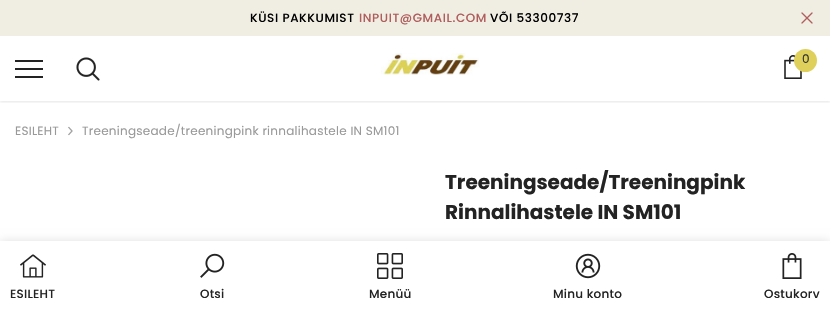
void draw(SkCanvas* canvas) {
  SkPaint paint;
  paint.setAntiAlias(true);
  auto face = [&](const char* family, int weight, float size, bool italic = false) {
    SkFontStyle style(weight, SkFontStyle::kNormal_Width,
      italic ? SkFontStyle::kItalic_Slant : SkFontStyle::kUpright_Slant);
    SkFont result(fontMgr->matchFamilyStyle(family, style), size);
    result.setSubpixel(true);
    return result;
  };
  auto writeSpaced = [&](const char* s, float x, float y, const SkFont& font, const SkPaint& ink, float letter, float word) {
    std::vector<SkGlyphID> glyphs(font.countText(s, strlen(s), SkTextEncoding::kUTF8));
    std::vector<float> xs(glyphs.size());
    font.textToGlyphs(s, strlen(s), SkTextEncoding::kUTF8, glyphs);
    font.getXPos(glyphs, xs, x);
    float extra = 0;
    for (size_t i = 0; i < glyphs.size(); i++) {
      xs[i] += extra;
      extra += letter + word * (glyphs[i] == font.unicharToGlyph(' '));
    }
    canvas->drawTextBlob(SkTextBlob::MakeFromPosHGlyphs(glyphs, xs, y, font), 0, 0, ink);
  };
  auto paste = [&](const char* path, float x, float y, float w, float h) {
    auto image = SkImages::DeferredFromEncodedData(SkData::MakeFromFileName(path));
    canvas->drawImageRect(image, SkRect::MakeXYWH(x, y, w, h), SkSamplingOptions());
  };
  canvas->clear(0xffffffff);
  paint.setColor(0xfff0ede2);
  canvas->drawRect(SkRect::MakeXYWH(0, 0, 830, 36), paint);
  paste("img/1.png", 801, 12, 12, 12);
  canvas->save();
  canvas->clipRect(SkRect::MakeXYWH(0, 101, 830, 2));
  paint.setColor(0x1a000000);
  paint.setMaskFilter(SkMaskFilter::MakeBlur(kNormal_SkBlurStyle, 1.5f));
  canvas->drawRect(SkRect::MakeXYWH(0, 37, 830, 65), paint);
  paint.setMaskFilter(nullptr);
  canvas->restore();
  {
    const struct { float x, y, w, h; SkColor color; } items[] = {
      {15, 68, 28, 2, 0xff232323},
      {15, 60, 28, 2, 0xff232323},
      {15, 76, 28, 2, 0xff232323},
    };
    for (auto [x, y, w, h, color] : items) {
      paint.setColor(color);
      canvas->drawRect(SkRect::MakeXYWH(x, y, w, h), paint);
    }
  }
  paste("img/2.png", 76, 57, 24, 24);
  paste("img/3.png", 381, 53, 98, 22);
  paste("img/4.png", 784, 55, 18, 24);
  paint.setColor(0xffded05a);
  canvas->drawCircle(805.5f, 60.5f, 11.5f, paint);
  paste("img/5.png", 68, 126, 5, 10);
  paint.setColor(0x1f000000);
  paint.setMaskFilter(SkMaskFilter::MakeBlur(kNormal_SkBlurStyle, 4.5f));
  canvas->drawRect(SkRect::MakeXYWH(0, 241, 830, 69), paint);
  paint.setMaskFilter(nullptr);
  paint.setColor(0xffffffff);
  canvas->drawRect(SkRect::MakeXYWH(0, 241, 830, 69), paint);
  paste("img/6.png", 20, 254, 26, 24);
  paste("img/7.png", 200, 253, 25, 25);
  paste("img/8.png", 377, 253, 26, 26);
  paste("img/9.png", 575, 253, 26, 26);
  paste("img/10.png", 782, 253, 20, 26);
  auto f0 = face("Poppins", 500, 12);
  paint.setColor(0xff000000);
  writeSpaced("KÜSI PAKKUMIST", 250, 22, f0, paint, 0.6f, 0);
  paint.setColor(0xffb05d5d);
  writeSpaced("INPUIT@GMAIL.COM", 359, 22, f0, paint, 0.6f, 0);
  paint.setColor(0xff000000);
  writeSpaced("VÕI 53300737", 490, 22, f0, paint, 0.6f, 0);
  auto f1 = face("Poppins", 400, 12);
  paint.setColor(0xff323232);
  writeSpaced("0", 802, 63, f1, paint, 0.25f, 0);
  paint.setColor(0xff999999);
  writeSpaced("ESILEHT", 15, 135, f1, paint, 0.25f, 0);
  writeSpaced("Treeningseade/treeningpink rinnalihastele IN SM101", 82, 135, f1, paint, 0.25f, 0);
  auto f2 = face("Poppins", 700, 20);
  paint.setColor(0xff232323);
  canvas->drawString("Treeningseade/Treeningpink", 445, 189, f2, paint);
  canvas->drawString("Rinnalihastele IN SM101", 445, 219, f2, paint);
  {
    const struct { const char* s; float x, y; } items[] = {
      {"ESILEHT", 10, 298},
      {"Otsi", 200, 298},
      {"Menüü", 369, 298},
      {"Minu konto", 553, 298},
      {"Ostukorv", 764, 298},
    };
    for (auto [s, x, y] : items) {
      writeSpaced(s, x, y, f0, paint, 0.25f, 0);
    }
  }
}
